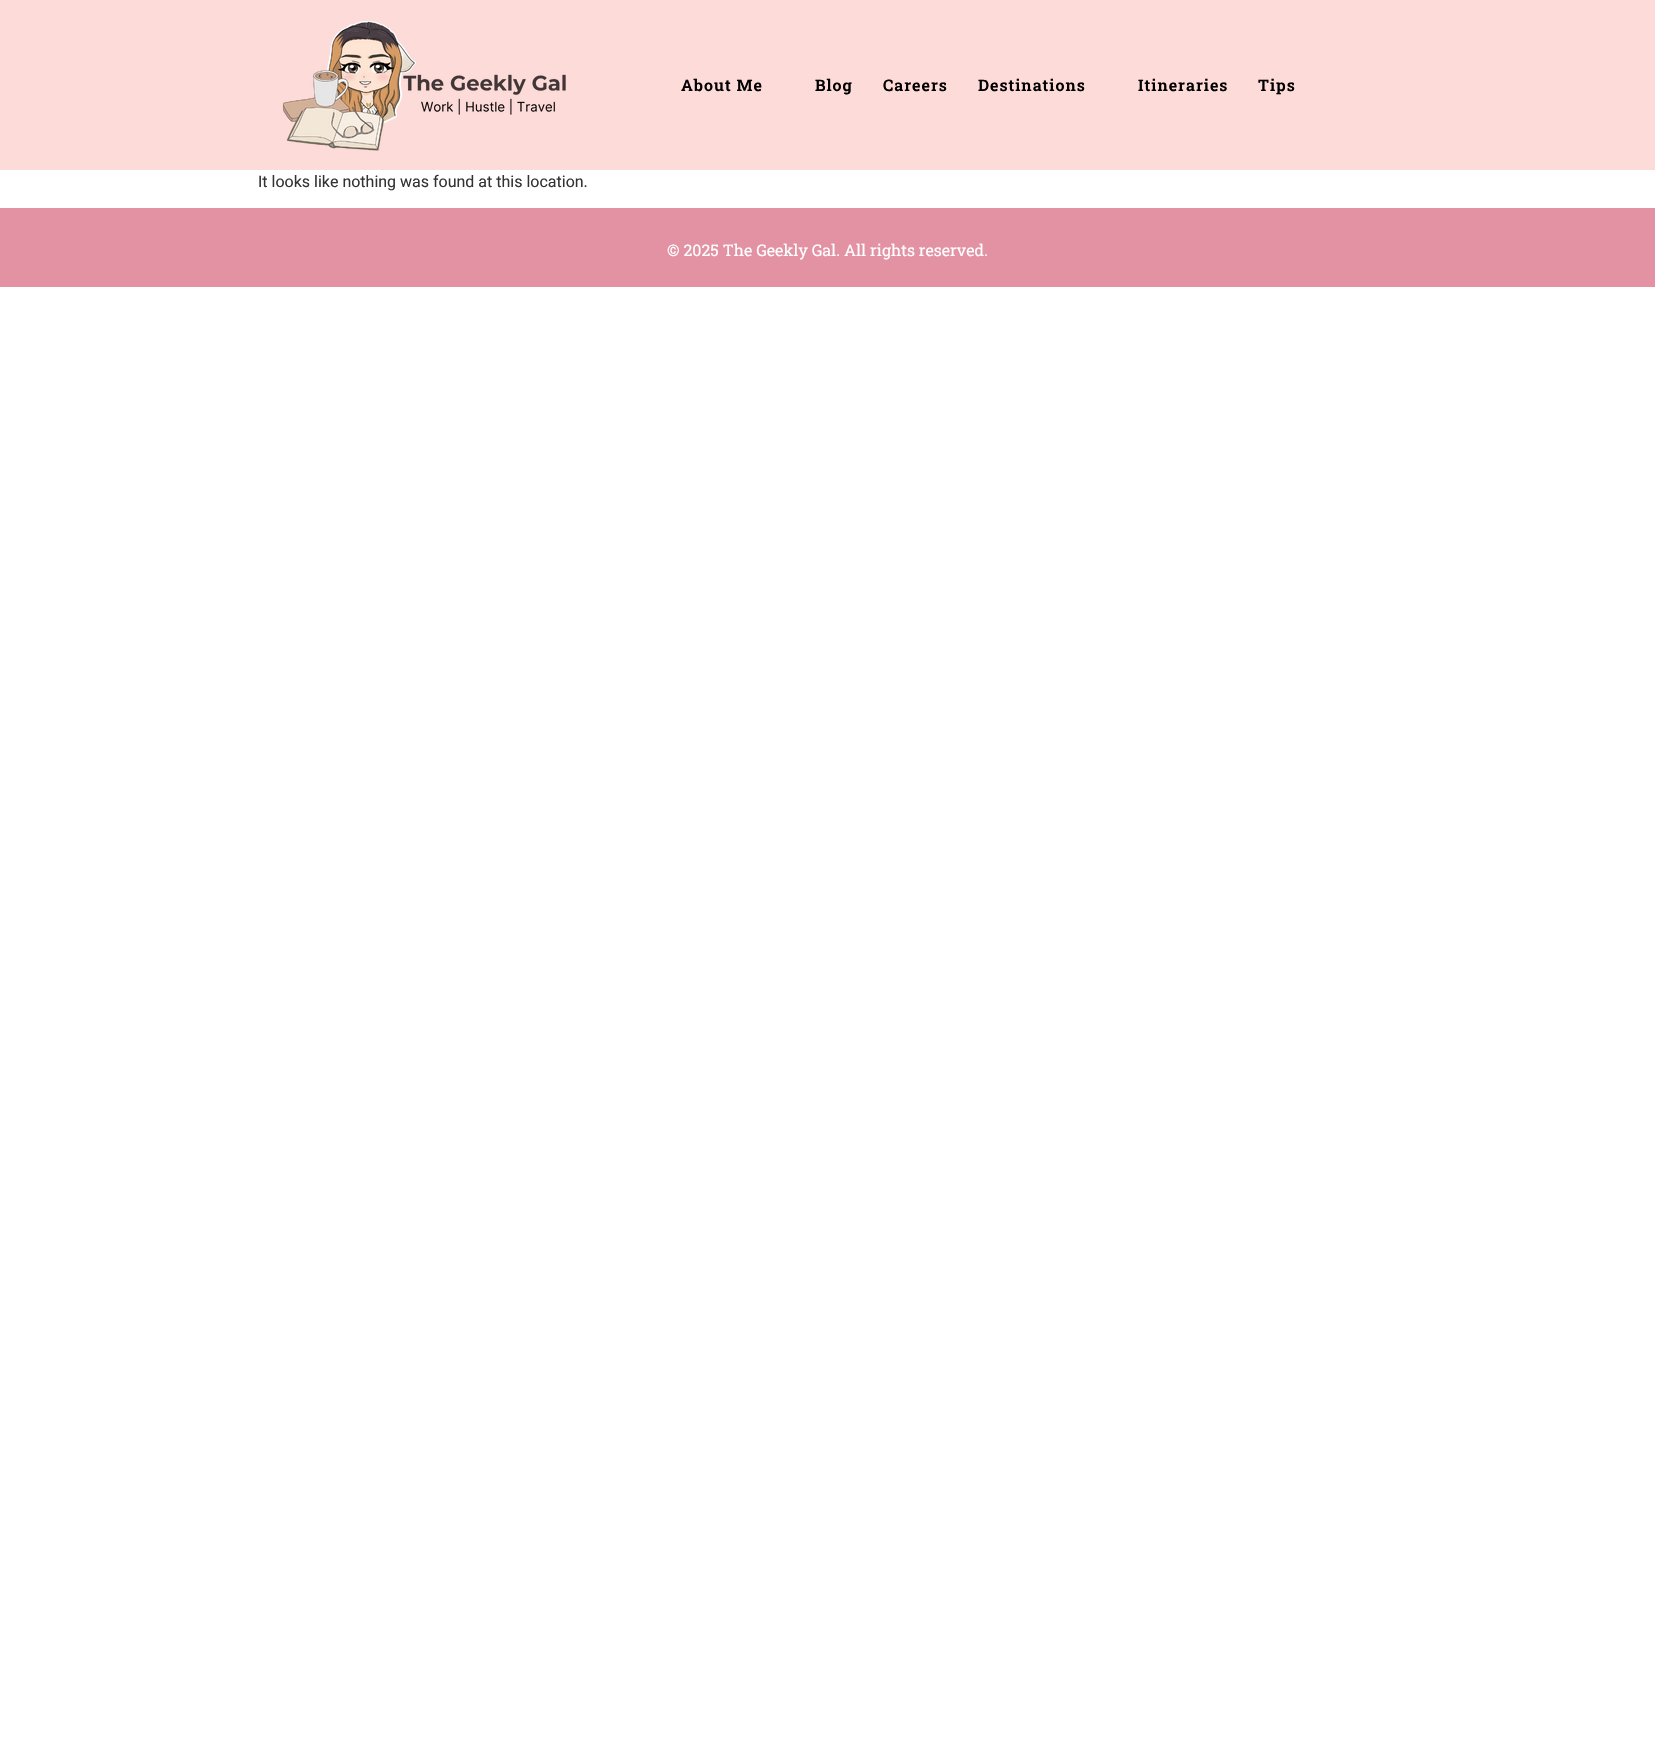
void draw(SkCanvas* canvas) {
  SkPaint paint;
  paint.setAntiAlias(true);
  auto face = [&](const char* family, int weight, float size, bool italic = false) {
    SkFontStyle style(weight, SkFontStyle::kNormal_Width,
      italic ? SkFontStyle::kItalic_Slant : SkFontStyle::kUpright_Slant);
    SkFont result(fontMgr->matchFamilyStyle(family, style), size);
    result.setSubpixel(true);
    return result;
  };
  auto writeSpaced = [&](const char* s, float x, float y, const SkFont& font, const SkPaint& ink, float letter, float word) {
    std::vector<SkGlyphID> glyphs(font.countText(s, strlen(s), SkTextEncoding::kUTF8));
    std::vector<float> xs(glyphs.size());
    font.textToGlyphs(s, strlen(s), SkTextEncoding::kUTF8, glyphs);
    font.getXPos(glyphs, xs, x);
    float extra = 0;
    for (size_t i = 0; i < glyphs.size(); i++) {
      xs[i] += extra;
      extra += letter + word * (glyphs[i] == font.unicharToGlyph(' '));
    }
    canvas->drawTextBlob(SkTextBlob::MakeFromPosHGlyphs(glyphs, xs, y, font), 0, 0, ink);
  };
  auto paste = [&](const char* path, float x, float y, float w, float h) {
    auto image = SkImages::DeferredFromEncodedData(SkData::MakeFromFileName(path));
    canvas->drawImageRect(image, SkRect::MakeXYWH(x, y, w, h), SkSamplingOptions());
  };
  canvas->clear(0xffffffff);
  paint.setColor(0xfffddbd9);
  canvas->drawRect(SkRect::MakeXYWH(0, 0, 1655, 170), paint);
  paste("img/1.png", 282, 20, 284, 131);
  paint.setColor(0xffe392a4);
  canvas->drawRect(SkRect::MakeXYWH(0, 208, 1655, 79), paint);
  auto f0 = face("Roboto Slab", 600, 16);
  paint.setColor(0xff000000);
  {
    const struct { const char* s; float x, y; } items[] = {
      {"About Me", 681, 91},
      {"Blog", 815, 91},
      {"Careers", 883, 91},
      {"Destinations", 978, 91},
      {"Itineraries", 1138, 91},
      {"Tips", 1258, 91},
    };
    for (auto [s, x, y] : items) {
      writeSpaced(s, x, y, f0, paint, 1, 0);
    }
  }
  auto f1 = face("Roboto", 400, 16);
  paint.setColor(0xff333333);
  canvas->drawString("It looks like nothing was found at this location.", 258, 187, f1, paint);
  auto f2 = face("Roboto Slab", 400, 16);
  paint.setColor(0xffffffff);
  canvas->drawString("© 2025 The Geekly Gal. All rights reserved.", 667, 256, f2, paint);
}
